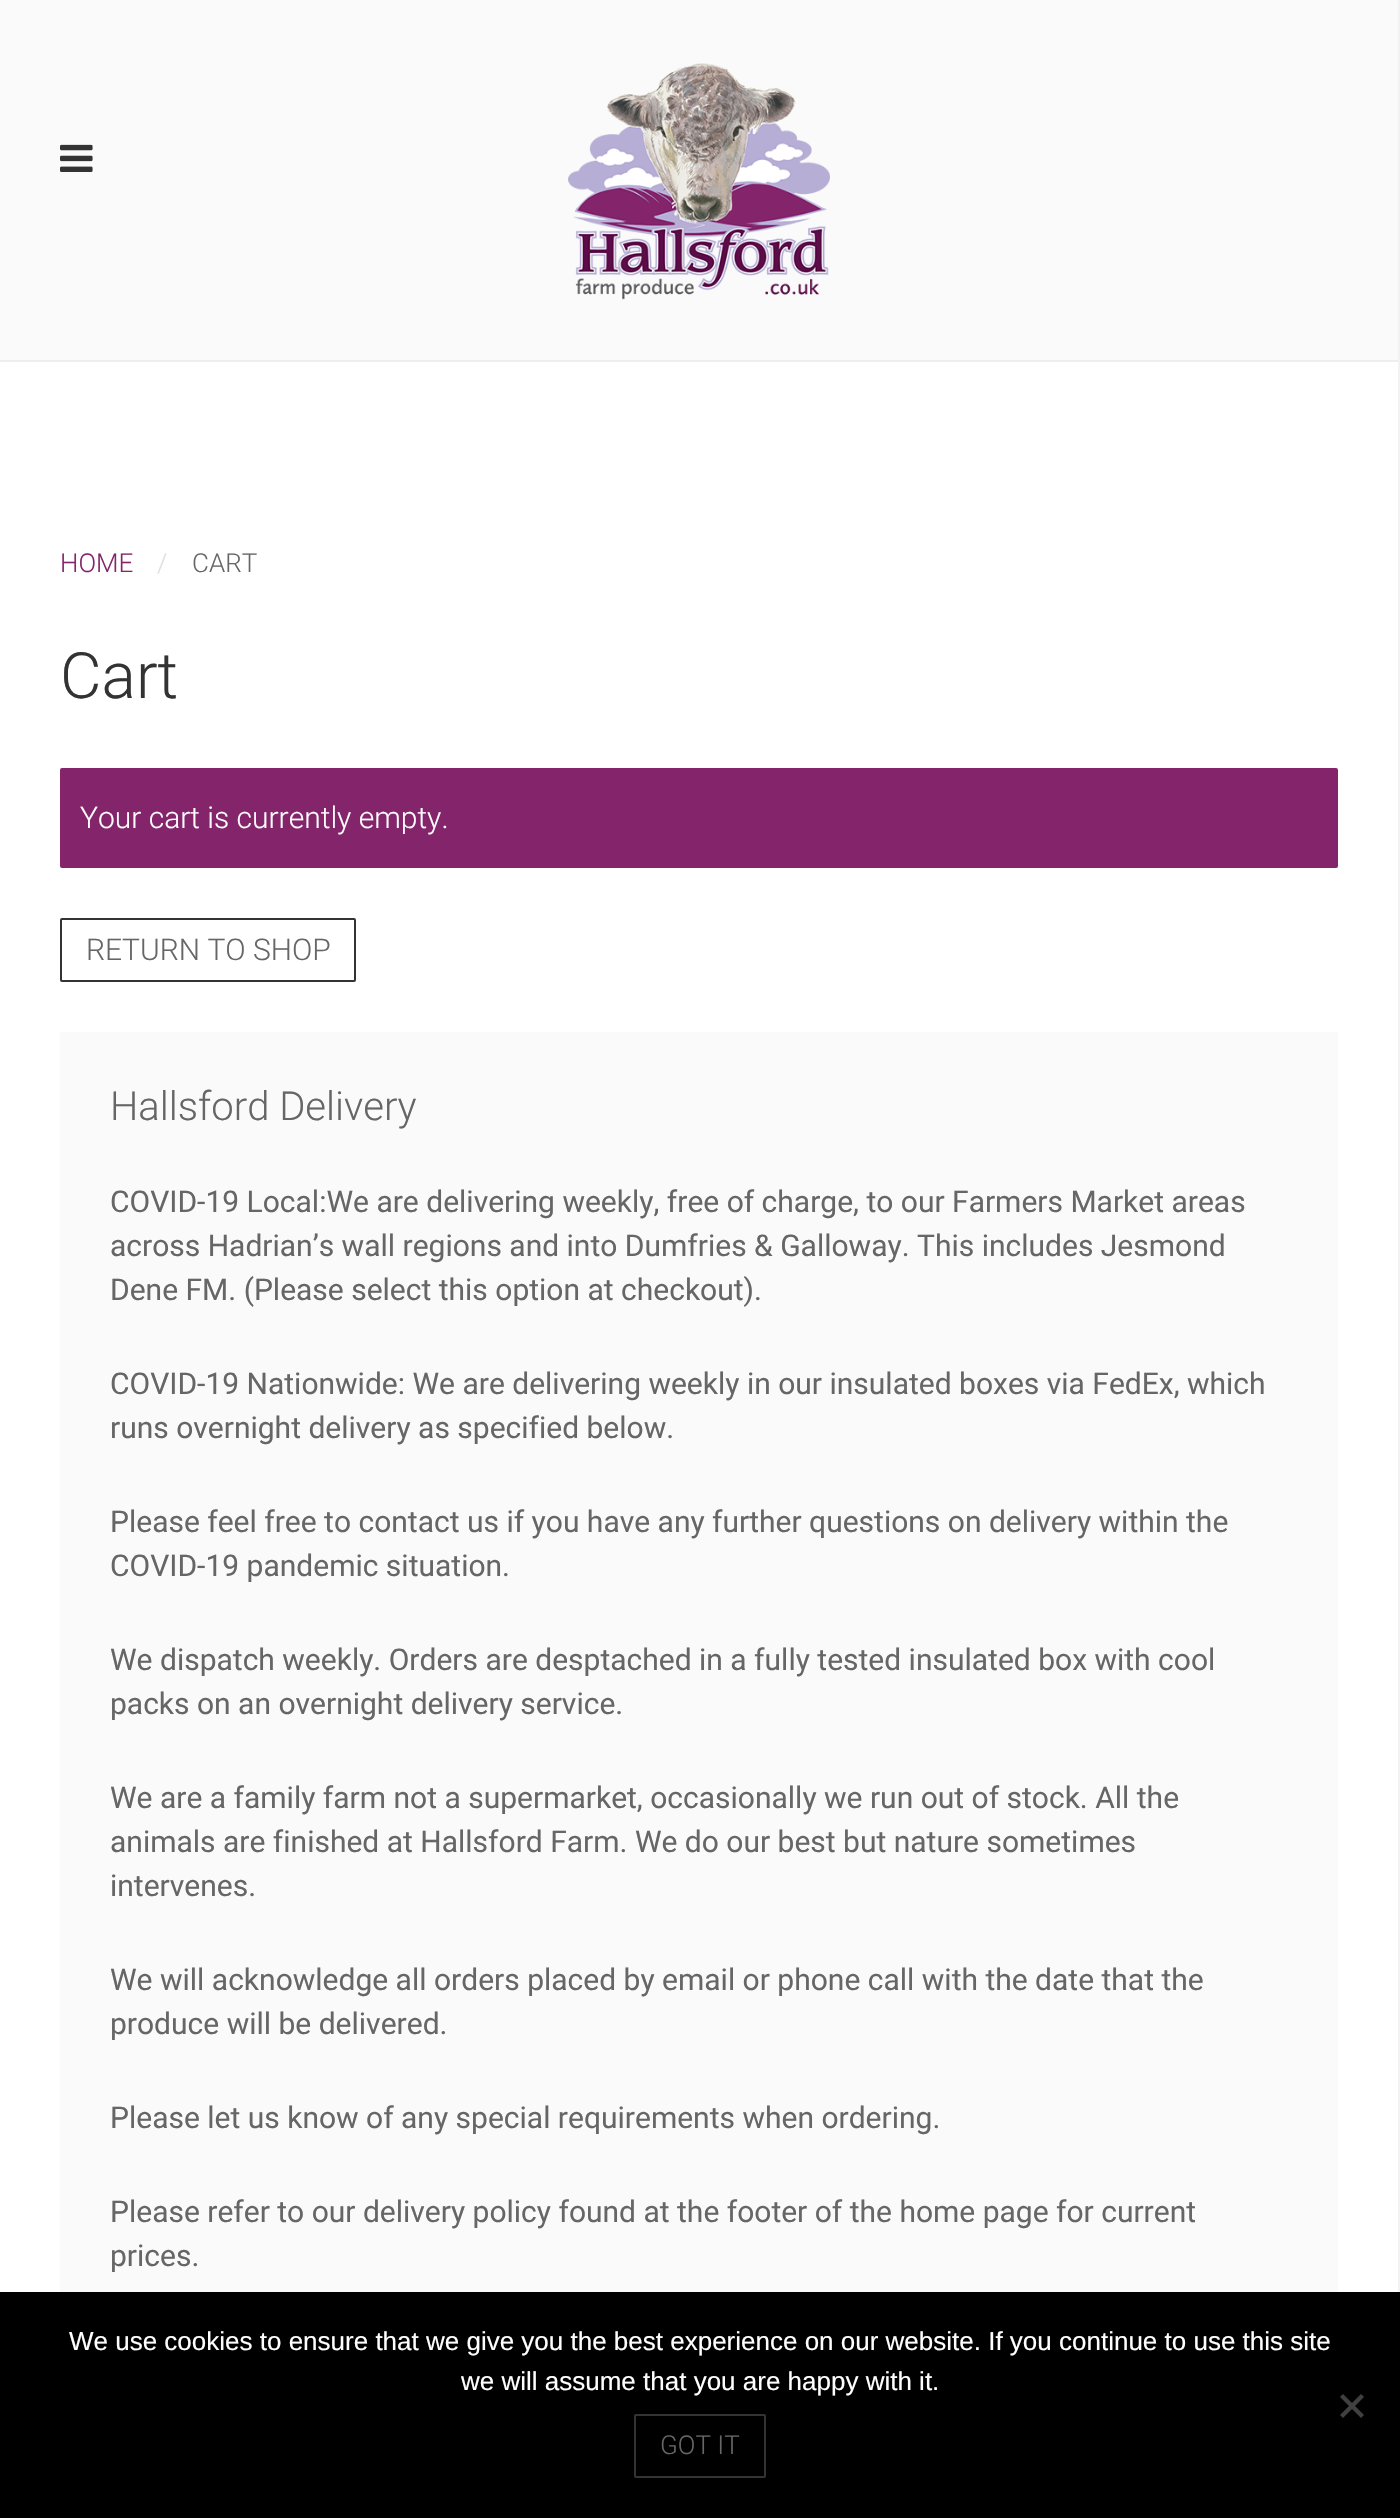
void draw(SkCanvas* canvas) {
  SkPaint paint;
  paint.setAntiAlias(true);
  auto face = [&](const char* family, int weight, float size, bool italic = false) {
    SkFontStyle style(weight, SkFontStyle::kNormal_Width,
      italic ? SkFontStyle::kItalic_Slant : SkFontStyle::kUpright_Slant);
    SkFont result(fontMgr->matchFamilyStyle(family, style), size);
    result.setSubpixel(true);
    return result;
  };
  auto paste = [&](const char* path, float x, float y, float w, float h) {
    auto image = SkImages::DeferredFromEncodedData(SkData::MakeFromFileName(path));
    canvas->drawImageRect(image, SkRect::MakeXYWH(x, y, w, h), SkSamplingOptions());
  };
  auto shape = [&](const char* data, bool evenOdd = false) {
    SkPath result = *SkParsePath::FromSVGString(data);
    if (evenOdd) result.setFillType(SkPathFillType::kEvenOdd);
    return result;
  };
  canvas->clear(0xffffffff);
  {
    const struct { float x, y, w, h; SkColor color; } items[] = {
      {1398, 0, 2, 2292, 0xfff2f2f2},
      {0, 0, 1398, 360, 0xfffafafa},
      {0, 360, 1398, 2, 0xffeeeeee},
    };
    for (auto [x, y, w, h, color] : items) {
      paint.setColor(color);
      canvas->drawRect(SkRect::MakeXYWH(x, y, w, h), paint);
    }
  }
  paste("img/1.png", 60, 144, 33, 28);
  paste("img/2.png", 568, 63, 262, 237);
  paint.setColor(0xff84256c);
  canvas->drawRoundRect(SkRect::MakeXYWH(60, 768, 1278, 100), 2, 2, paint);
  paint.setStroke(true);
  paint.setStrokeWidth(2);
  paint.setColor(0xff333333);
  canvas->drawRoundRect(SkRect::MakeXYWH(61, 919, 294, 62), 1, 1, paint);
  paint.setStroke(false);
  paint.setColor(0xfffafafa);
  canvas->drawRoundRect(SkRect::MakeXYWH(60, 1032, 1278, 1296), 2, 2, paint);
  paint.setColor(0xff000000);
  canvas->drawRect(SkRect::MakeXYWH(0, 2292, 1400, 226), paint);
  paint.setColor(0xff404040);
  canvas->drawPath(shape("M1361 2394L1364 2397L1343 2418L1340 2415Z"), paint);
  canvas->drawPath(shape("M1340 2397L1343 2394L1364 2415L1361 2418Z"), paint);
  paint.setStroke(true);
  paint.setColor(0xff333333);
  canvas->drawRoundRect(SkRect::MakeXYWH(635, 2415, 130, 62), 1, 1, paint);
  auto f0 = face("Roboto", 300, 26);
  paint.setStroke(false);
  paint.setColor(0xff84256c);
  canvas->drawString("HOME", 60, 572, f0, paint);
  paint.setColor(0xffe0e0e0);
  canvas->drawString("/", 157, 572, f0, paint);
  paint.setColor(0xff666666);
  canvas->drawString("CART", 192, 572, f0, paint);
  auto f1 = face("Roboto", 300, 64);
  paint.setColor(0xff333333);
  canvas->drawString("Cart", 60, 698, f1, paint);
  auto f2 = face("Roboto", 300, 30);
  paint.setColor(0xffffffff);
  canvas->drawString("Your cart is currently empty.", 80, 828, f2, paint);
  paint.setColor(0xff666666);
  canvas->drawString("RETURN TO SHOP", 86, 960, f2, paint);
  auto f3 = face("Roboto", 300, 40);
  canvas->drawString("Hallsford Delivery", 110, 1120, f3, paint);
  auto f4 = face("Roboto", 400, 30);
  {
    const struct { const char* s; float x, y; } items[] = {
      {"COVID-19 Local:We are delivering weekly, free of charge, to our Farmers Market areas", 110, 1212},
      {"across Hadrian’s wall regions and into Dumfries & Galloway. This includes Jesmond", 110, 1256},
      {"Dene FM. (Please select this option at checkout).", 110, 1300},
      {"COVID-19 Nationwide: We are delivering weekly in our insulated boxes via FedEx, which", 110, 1394},
      {"runs overnight delivery as specified below.", 110, 1438},
      {"Please feel free to contact us if you have any further questions on delivery within the", 110, 1532},
      {"COVID-19 pandemic situation.", 110, 1576},
      {"We dispatch weekly. Orders are desptached in a fully tested insulated box with cool", 110, 1670},
      {"packs on an overnight delivery service.", 110, 1714},
      {"We are a family farm not a supermarket, occasionally we run out of stock. All the", 110, 1808},
      {"animals are finished at Hallsford Farm. We do our best but nature sometimes", 110, 1852},
      {"intervenes.", 110, 1896},
      {"We will acknowledge all orders placed by email or phone call with the date that the", 110, 1990},
      {"produce will be delivered.", 110, 2034},
      {"Please let us know of any special requirements when ordering.", 110, 2128},
      {"Please refer to our delivery policy found at the footer of the home page for current", 110, 2222},
      {"prices.", 110, 2266},
    };
    for (auto [s, x, y] : items) {
      canvas->drawString(s, x, y, f4, paint);
    }
  }
  auto f5 = face("Liberation Sans", 400, 26);
  paint.setColor(0xffffffff);
  canvas->drawString("We use cookies to ensure that we give you the best experience on our website. If you continue to use this site", 69, 2350, f5, paint);
  canvas->drawString("we will assume that you are happy with it.", 461, 2390, f5, paint);
  paint.setColor(0xff666666);
  canvas->drawString("GOT IT", 660, 2454, f0, paint);
}
